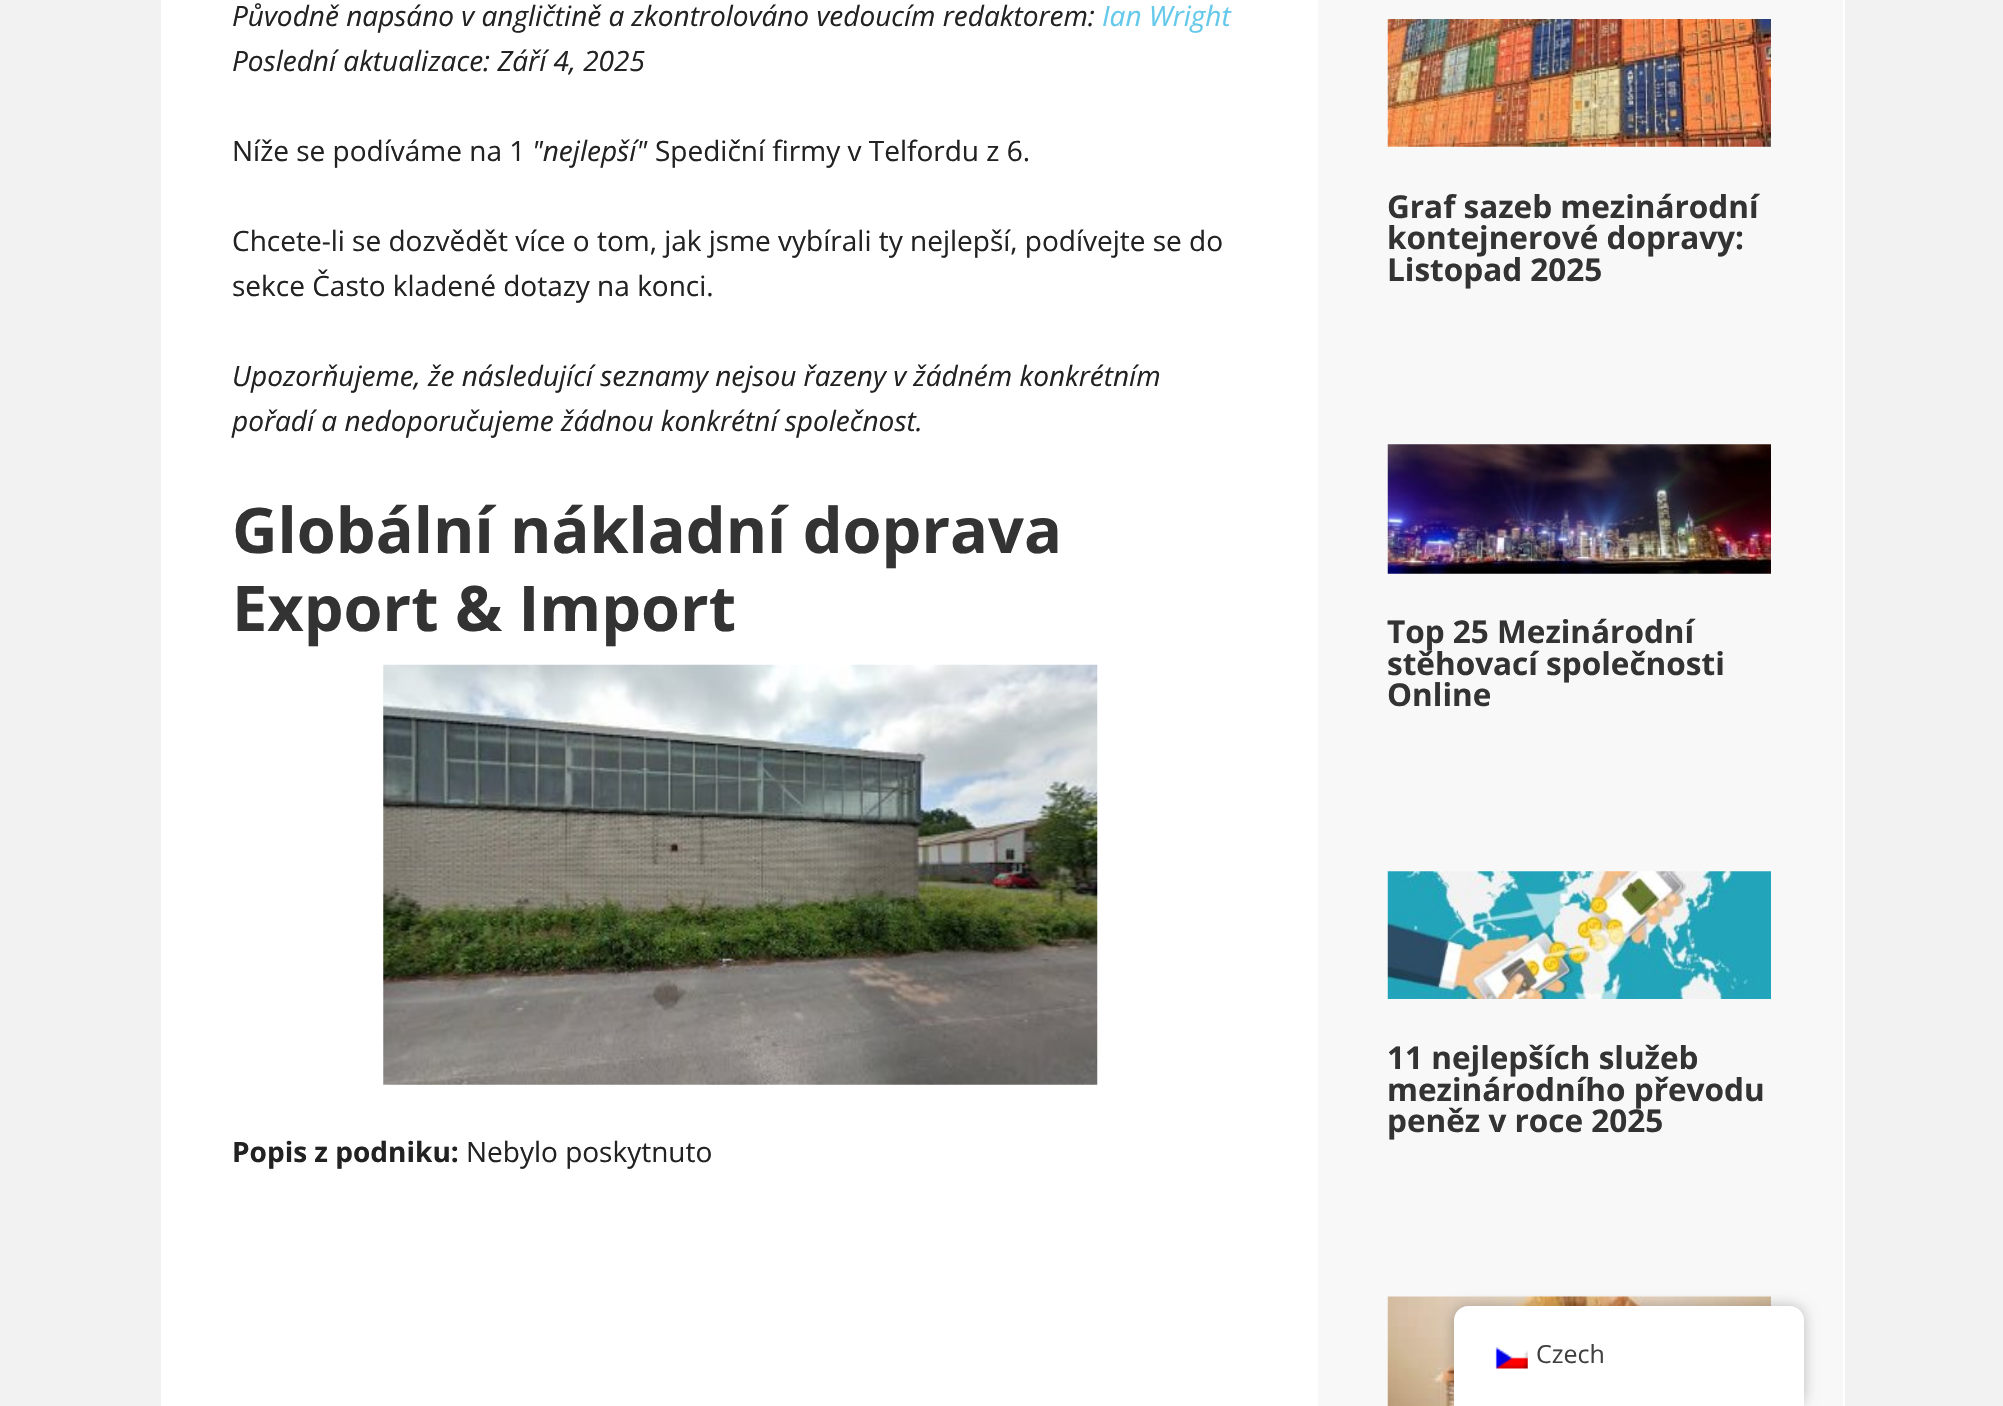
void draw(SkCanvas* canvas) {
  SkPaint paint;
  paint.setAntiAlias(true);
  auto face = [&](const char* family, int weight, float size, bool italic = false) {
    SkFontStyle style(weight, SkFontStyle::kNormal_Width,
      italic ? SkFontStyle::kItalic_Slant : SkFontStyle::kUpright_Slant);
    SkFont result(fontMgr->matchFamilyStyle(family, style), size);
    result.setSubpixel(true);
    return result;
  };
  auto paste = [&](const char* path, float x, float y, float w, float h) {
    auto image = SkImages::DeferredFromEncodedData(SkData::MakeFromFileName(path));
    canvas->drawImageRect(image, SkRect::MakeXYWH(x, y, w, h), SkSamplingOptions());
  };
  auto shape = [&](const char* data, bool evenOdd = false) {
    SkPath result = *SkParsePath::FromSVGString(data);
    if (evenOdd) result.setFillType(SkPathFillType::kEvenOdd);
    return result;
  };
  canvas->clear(0xfff2f2f2);
  paint.setStroke(true);
  paint.setStrokeWidth(2);
  paint.setColor(0xffffffff);
  canvas->drawRect(SkRect::MakeXYWH(162, -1, 1682, 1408), paint);
  paint.setStroke(false);
  canvas->drawRect(SkRect::MakeXYWH(163, 0, 1155, 1406), paint);
  paste("img/1.png", 383, 664, 715, 421);
  paint.setColor(0xfff8f8f8);
  canvas->drawRect(SkRect::MakeXYWH(1318, 0, 525, 1406), paint);
  paste("img/2.png", 1387, 19, 384, 128);
  paste("img/3.png", 1387, 444, 384, 130);
  paste("img/4.png", 1387, 871, 384, 128);
  paste("img/5.png", 1387, 1296, 384, 110);
  paint.setColor(0x40000000);
  paint.setMaskFilter(SkMaskFilter::MakeBlur(kNormal_SkBlurStyle, 7));
  canvas->drawRoundRect(SkRect::MakeXYWH(1454, 1306, 350, 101), 14, 14, paint);
  paint.setMaskFilter(nullptr);
  paint.setColor(0xffffffff);
  canvas->drawPath(shape("M1468 1306H1790C1797.5 1306 1804 1312.5 1804 1320V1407H1454V1320C1454 1312.5 1460.5 1306 1468 1306Z"), paint);
  paste("img/6.png", 1495, 1347, 33, 22);
  auto f0 = face("Open Sans", 400, 28, true);
  paint.setColor(0xff222222);
  canvas->drawString("Původně napsáno v angličtině a zkontrolováno vedoucím redaktorem:", 232, 26, f0, paint);
  paint.setColor(0xff64c9ea);
  canvas->drawString("Ian Wright", 1102, 26, f0, paint);
  paint.setColor(0xff222222);
  canvas->drawString("Poslední aktualizace: Září 4, 2025", 232, 71, f0, paint);
  auto f1 = face("Open Sans", 400, 28);
  canvas->drawString("Níže se podíváme na 1", 232, 161, f1, paint);
  canvas->drawString("\"nejlepší\"", 532, 161, f0, paint);
  {
    const struct { const char* s; float x, y; } items[] = {
      {"Spediční firmy v Telfordu z 6.", 655, 161},
      {"Chcete-li se dozvědět více o tom, jak jsme vybírali ty nejlepší, podívejte se do", 232, 251},
      {"sekce Často kladené dotazy na konci.", 232, 296},
    };
    for (auto [s, x, y] : items) {
      canvas->drawString(s, x, y, f1, paint);
    }
  }
  canvas->drawString("Upozorňujeme, že následující seznamy nejsou řazeny v žádném konkrétním", 232, 386, f0, paint);
  canvas->drawString("pořadí a nedoporučujeme žádnou konkrétní společnost.", 232, 431, f0, paint);
  auto f2 = face("Open Sans", 700, 63);
  paint.setColor(0xff333333);
  canvas->drawString("Globální nákladní doprava", 232, 553, f2, paint);
  canvas->drawString("Export & Import", 232, 631, f2, paint);
  auto f3 = face("Open Sans", 700, 28);
  paint.setColor(0xff222222);
  canvas->drawString("Popis z podniku:", 232, 1162, f3, paint);
  canvas->drawString("Nebylo poskytnuto", 466, 1162, f1, paint);
  auto f4 = face("Open Sans", 700, 31.5f);
  paint.setColor(0xff333333);
  {
    const struct { const char* s; float x, y; } items[] = {
      {"Graf sazeb mezinárodní", 1387, 218},
      {"kontejnerové dopravy:", 1387, 249},
      {"Listopad 2025", 1387, 281},
      {"Top 25 Mezinárodní", 1387, 643},
      {"stěhovací společnosti", 1387, 675},
      {"Online", 1387, 706},
      {"11 nejlepších služeb", 1387, 1069},
      {"mezinárodního převodu", 1387, 1101},
      {"peněz v roce 2025", 1387, 1132},
    };
    for (auto [s, x, y] : items) {
      canvas->drawString(s, x, y, f4, paint);
    }
  }
  auto f5 = face("Open Sans", 400, 25);
  paint.setColor(0xff404040);
  canvas->drawString("Czech", 1536, 1363, f5, paint);
}
